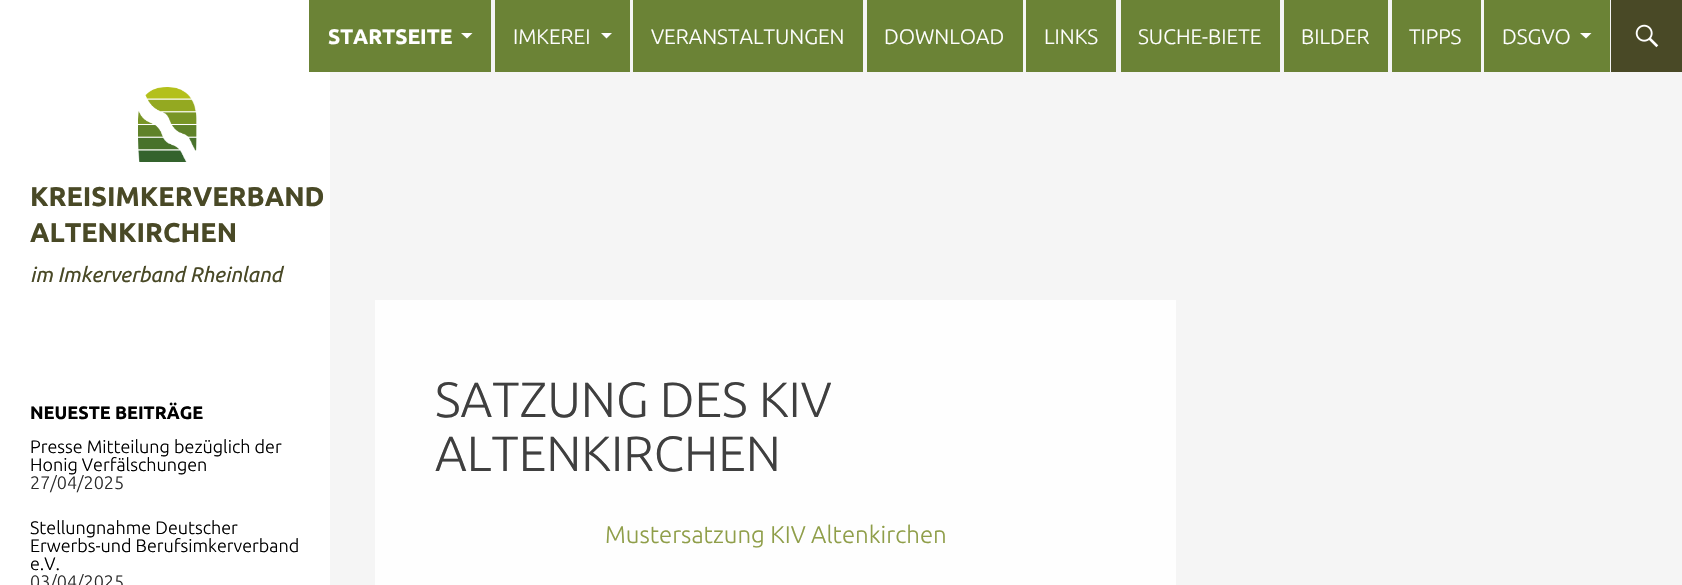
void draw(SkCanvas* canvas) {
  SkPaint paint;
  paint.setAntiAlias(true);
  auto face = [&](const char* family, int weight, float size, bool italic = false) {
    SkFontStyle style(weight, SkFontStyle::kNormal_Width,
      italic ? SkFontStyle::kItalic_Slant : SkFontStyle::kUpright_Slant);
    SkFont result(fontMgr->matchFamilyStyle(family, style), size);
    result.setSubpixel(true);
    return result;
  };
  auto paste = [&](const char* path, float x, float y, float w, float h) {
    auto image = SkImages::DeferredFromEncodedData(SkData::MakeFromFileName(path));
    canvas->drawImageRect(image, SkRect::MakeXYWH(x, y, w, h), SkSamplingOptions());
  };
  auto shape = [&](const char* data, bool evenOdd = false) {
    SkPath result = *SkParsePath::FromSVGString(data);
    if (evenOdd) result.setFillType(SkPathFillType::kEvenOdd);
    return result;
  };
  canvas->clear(0xfff5f5f5);
  paint.setColor(0xffffffff);
  canvas->drawRect(SkRect::MakeXYWH(0, 0, 330, 585), paint);
  paint.setColor(0xff6b8336);
  canvas->drawRect(SkRect::MakeXYWH(309, 0, 182, 72), paint);
  paint.setColor(0xffffffff);
  canvas->drawPath(shape("M461 33L467 38.5L472.5 33Z"), paint);
  paint.setColor(0xff6b8336);
  canvas->drawRect(SkRect::MakeXYWH(495, 0, 135, 72), paint);
  paint.setColor(0xffffffff);
  canvas->drawPath(shape("M601 33L606.5 38.5L612 33Z"), paint);
  {
    const struct { float x, y, w, h; SkColor color; } items[] = {
      {633, 0, 230, 72, 0xff6b8336},
      {867, 0, 156, 72, 0xff6b8336},
      {1026, 0, 90, 72, 0xff6b8336},
      {1121, 0, 159, 72, 0xff6b8336},
      {1284, 0, 104, 72, 0xff6b8336},
      {1392, 0, 89, 72, 0xff6b8336},
      {1484, 0, 126, 72, 0xff6b8336},
    };
    for (auto [x, y, w, h, color] : items) {
      paint.setColor(color);
      canvas->drawRect(SkRect::MakeXYWH(x, y, w, h), paint);
    }
  }
  paint.setColor(0xffffffff);
  canvas->drawPath(shape("M1580 33L1586 38.5L1591.5 33Z"), paint);
  paint.setColor(0xff494926);
  canvas->drawRect(SkRect::MakeXYWH(1611, 0, 71, 72), paint);
  paste("img/1.png", 1635, 24, 24, 24);
  paste("img/2.png", 138, 87, 59, 75);
  paint.setColor(0xfffefefe);
  canvas->drawRect(SkRect::MakeXYWH(375, 300, 801, 285), paint);
  auto f0 = face("Ubuntu", 700, 21);
  paint.setColor(0xffffffff);
  canvas->drawString("STARTSEITE", 328, 44, f0, paint);
  auto f1 = face("Ubuntu", 300, 21);
  {
    const struct { const char* s; float x, y; } items[] = {
      {"IMKEREI", 513, 44},
      {"VERANSTALTUNGEN", 651, 44},
      {"DOWNLOAD", 884, 44},
      {"LINKS", 1044, 44},
      {"SUCHE-BIETE", 1138, 44},
      {"BILDER", 1301, 44},
      {"TIPPS", 1409, 44},
      {"DSGVO", 1502, 44},
    };
    for (auto [s, x, y] : items) {
      canvas->drawString(s, x, y, f1, paint);
    }
  }
  auto f2 = face("Ubuntu", 700, 27);
  paint.setColor(0xff494926);
  canvas->drawString("KREISIMKERVERBAND", 30, 206, f2, paint);
  canvas->drawString("ALTENKIRCHEN", 30, 242, f2, paint);
  auto f3 = face("Ubuntu", 400, 21, true);
  canvas->drawString("im Imkerverband Rheinland", 30, 282, f3, paint);
  auto f4 = face("Ubuntu", 700, 18);
  paint.setColor(0xff000000);
  canvas->drawString("NEUESTE BEITRÄGE", 30, 419, f4, paint);
  auto f5 = face("Ubuntu", 300, 18);
  canvas->drawString("Presse Mitteilung bezüglich der", 30, 453, f5, paint);
  canvas->drawString("Honig Verfälschungen", 30, 471, f5, paint);
  paint.setColor(0xff2b2b2b);
  canvas->drawString("27/04/2025", 30, 489, f5, paint);
  paint.setColor(0xff000000);
  {
    const struct { const char* s; float x, y; } items[] = {
      {"Stellungnahme Deutscher", 30, 534},
      {"Erwerbs-und Berufsimkerverband", 30, 552},
      {"e.V.", 30, 570},
    };
    for (auto [s, x, y] : items) {
      canvas->drawString(s, x, y, f5, paint);
    }
  }
  paint.setColor(0xff2b2b2b);
  canvas->drawString("03/04/2025", 30, 588, f5, paint);
  auto f6 = face("Ubuntu", 300, 49.5f);
  paint.setColor(0xff3f3f3f);
  canvas->drawString("SATZUNG DES KIV", 435, 417, f6, paint);
  canvas->drawString("ALTENKIRCHEN", 435, 471, f6, paint);
  auto f7 = face("Ubuntu", 300, 24);
  paint.setColor(0xff8f9e49);
  canvas->drawString("Mustersatzung KIV Altenkirchen", 605, 543, f7, paint);
}
